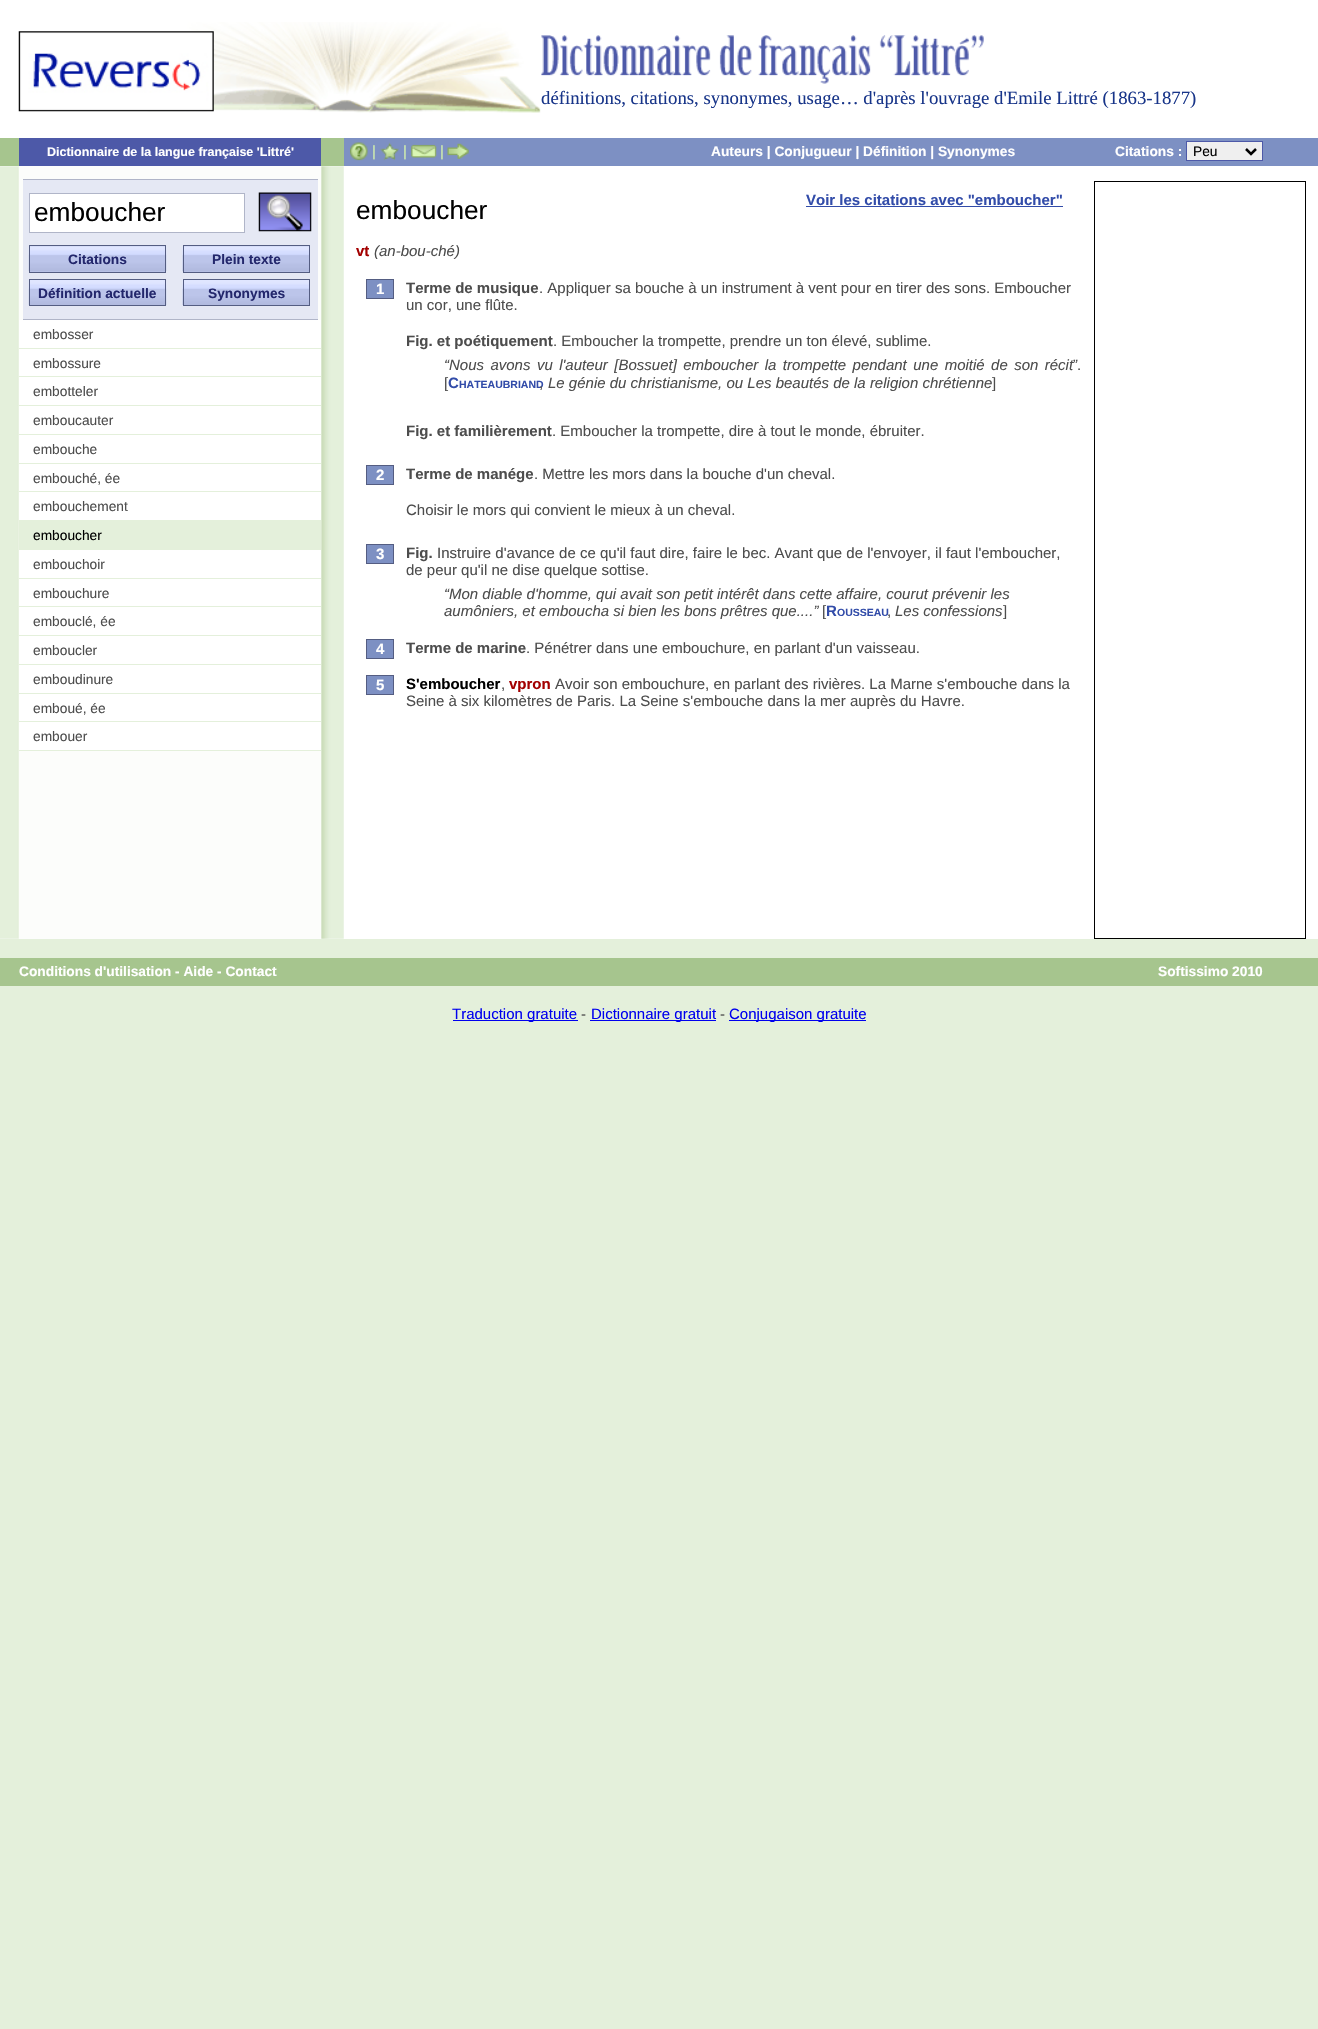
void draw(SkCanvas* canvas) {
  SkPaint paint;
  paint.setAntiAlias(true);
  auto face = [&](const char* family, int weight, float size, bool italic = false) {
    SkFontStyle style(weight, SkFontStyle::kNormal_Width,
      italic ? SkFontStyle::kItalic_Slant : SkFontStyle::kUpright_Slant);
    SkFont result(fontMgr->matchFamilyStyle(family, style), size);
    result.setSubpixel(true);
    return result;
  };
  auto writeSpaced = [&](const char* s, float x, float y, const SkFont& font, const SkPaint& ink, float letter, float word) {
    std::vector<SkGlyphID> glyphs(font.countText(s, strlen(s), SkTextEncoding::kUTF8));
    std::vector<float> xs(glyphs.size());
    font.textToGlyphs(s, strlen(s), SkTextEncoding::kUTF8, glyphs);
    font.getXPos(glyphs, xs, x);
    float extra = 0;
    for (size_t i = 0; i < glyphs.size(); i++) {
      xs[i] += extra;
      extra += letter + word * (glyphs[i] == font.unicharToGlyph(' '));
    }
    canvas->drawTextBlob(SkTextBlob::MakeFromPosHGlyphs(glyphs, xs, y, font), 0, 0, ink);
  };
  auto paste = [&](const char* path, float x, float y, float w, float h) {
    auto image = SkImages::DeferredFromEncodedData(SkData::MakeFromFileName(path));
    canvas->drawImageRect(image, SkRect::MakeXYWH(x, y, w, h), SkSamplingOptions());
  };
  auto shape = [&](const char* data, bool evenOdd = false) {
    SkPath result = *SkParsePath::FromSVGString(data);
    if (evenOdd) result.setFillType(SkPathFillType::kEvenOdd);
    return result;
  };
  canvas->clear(0xffe4f0db);
  paint.setColor(0xffffffff);
  canvas->drawRect(SkRect::MakeXYWH(0, 0, 1318, 138), paint);
  paste("img/1.png", 146, 22, 395, 91);
  paste("img/2.png", 18, 31, 196, 81);
  paste("img/3.png", 541, 35, 443, 49);
  {
    const struct { float x, y, w, h; SkColor color; } items[] = {
      {0, 138, 344, 28, 0xffa6c58e},
      {19, 138, 302, 28, 0xff4d59a8},
      {344, 138, 974, 28, 0xff7d90c3},
    };
    for (auto [x, y, w, h, color] : items) {
      paint.setColor(color);
      canvas->drawRect(SkRect::MakeXYWH(x, y, w, h), paint);
    }
  }
  paste("img/4.png", 350, 142, 18, 19);
  paste("img/5.png", 380, 142, 19, 19);
  paste("img/6.png", 411, 144, 26, 14);
  paste("img/7.png", 447, 143, 22, 16);
  paint.setColor(0xffefefef);
  canvas->drawRect(SkRect::MakeXYWH(1186.5f, 141.5f, 76, 19), paint);
  paint.setStroke(true);
  paint.setStrokeWidth(1);
  paint.setColor(0xff4d59a8);
  canvas->drawRect(SkRect::MakeXYWH(1186.5f, 141.5f, 76, 19), paint);
  paint.setStrokeWidth(2.5f);
  paint.setColor(0xff000000);
  canvas->drawPath(shape("M1246 149L1251 154L1256 149"), paint);
  paint.setStroke(false);
  paint.setColor(0xffffffff);
  canvas->drawRect(SkRect::MakeXYWH(0, 166, 1318, 773), paint);
  paste("img/8.png", 0, 166, 344, 773);
  {
    const struct { float x, y, w, h; SkColor color; } items[] = {
      {23, 180, 295, 139, 0xffe5e8f4},
      {23, 179, 295, 1, 0xffb0b5c8},
      {23, 319, 295, 1, 0xffb0b5c8},
    };
    for (auto [x, y, w, h, color] : items) {
      paint.setColor(color);
      canvas->drawRect(SkRect::MakeXYWH(x, y, w, h), paint);
    }
  }
  paint.setColor(0xffffffff);
  canvas->drawRect(SkRect::MakeXYWH(29.5f, 193.5f, 215, 39), paint);
  paint.setStroke(true);
  paint.setStrokeWidth(1);
  paint.setColor(0xffb0b5c8);
  canvas->drawRect(SkRect::MakeXYWH(29.5f, 193.5f, 215, 39), paint);
  paste("img/9.png", 258, 192, 54, 40);
  paint.setStroke(false);
  paint.setColor(0xffb8c1e6);
  canvas->drawRect(SkRect::MakeXYWH(30, 246, 135, 26), paint);
  paste("img/10.png", 28, 246, 139, 25);
  paint.setStroke(true);
  paint.setColor(0xff545d82);
  canvas->drawRect(SkRect::MakeXYWH(29.5f, 245.5f, 136, 27), paint);
  paint.setStroke(false);
  paint.setColor(0xffb8c1e6);
  canvas->drawRect(SkRect::MakeXYWH(184, 246, 125, 26), paint);
  paste("img/11.png", 182, 246, 127, 26);
  paint.setStroke(true);
  paint.setColor(0xff545d82);
  canvas->drawRect(SkRect::MakeXYWH(183.5f, 245.5f, 126, 27), paint);
  paste("img/12.png", 28, 280, 139, 25);
  canvas->drawRect(SkRect::MakeXYWH(29.5f, 279.5f, 136, 26), paint);
  paste("img/13.png", 182, 280, 127, 25);
  canvas->drawRect(SkRect::MakeXYWH(183.5f, 279.5f, 126, 26), paint);
  paint.setStroke(false);
  {
    const struct { float x, y, w, h; SkColor color; } items[] = {
      {19, 320, 302, 28, 0xffffffff},
      {19, 348, 302, 1, 0xffe4f0db},
      {19, 349, 302, 56, 0xffffffff},
      {19, 376, 302, 1, 0xffe4f0db},
      {19, 405, 302, 1, 0xffe4f0db},
      {19, 406, 302, 28, 0xffffffff},
      {19, 434, 302, 1, 0xffe4f0db},
      {19, 435, 302, 28, 0xffffffff},
      {19, 463, 302, 1, 0xffe4f0db},
      {19, 464, 302, 56, 0xffffffff},
      {19, 491, 302, 1, 0xffe4f0db},
      {19, 520, 302, 30, 0xffe4f0db},
      {19, 550, 302, 28, 0xffffffff},
      {19, 578, 302, 1, 0xffe4f0db},
      {19, 579, 302, 56, 0xffffffff},
      {19, 606, 302, 1, 0xffe4f0db},
      {19, 635, 302, 1, 0xffe4f0db},
      {19, 636, 302, 28, 0xffffffff},
      {19, 664, 302, 1, 0xffe4f0db},
      {19, 665, 302, 28, 0xffffffff},
      {19, 693, 302, 1, 0xffe4f0db},
      {19, 694, 302, 56, 0xffffffff},
      {19, 721, 302, 1, 0xffe4f0db},
      {19, 750, 302, 1, 0xffe4f0db},
      {806, 206, 257, 1, 0xff324ca9},
    };
    for (auto [x, y, w, h, color] : items) {
      paint.setColor(color);
      canvas->drawRect(SkRect::MakeXYWH(x, y, w, h), paint);
    }
  }
  paint.setColor(0xff7d90c3);
  canvas->drawRect(SkRect::MakeXYWH(366.5f, 279.5f, 27, 19), paint);
  paint.setStroke(true);
  paint.setColor(0xff545d82);
  canvas->drawRect(SkRect::MakeXYWH(366.5f, 279.5f, 27, 19), paint);
  paint.setStroke(false);
  paint.setColor(0xff7d90c3);
  canvas->drawRect(SkRect::MakeXYWH(366.5f, 465.5f, 27, 19), paint);
  paint.setStroke(true);
  paint.setColor(0xff545d82);
  canvas->drawRect(SkRect::MakeXYWH(366.5f, 465.5f, 27, 19), paint);
  paint.setStroke(false);
  paint.setColor(0xff7d90c3);
  canvas->drawRect(SkRect::MakeXYWH(366.5f, 544.5f, 27, 19), paint);
  paint.setStroke(true);
  paint.setColor(0xff545d82);
  canvas->drawRect(SkRect::MakeXYWH(366.5f, 544.5f, 27, 19), paint);
  paint.setStroke(false);
  paint.setColor(0xff7d90c3);
  canvas->drawRect(SkRect::MakeXYWH(366.5f, 639.5f, 27, 19), paint);
  paint.setStroke(true);
  paint.setColor(0xff545d82);
  canvas->drawRect(SkRect::MakeXYWH(366.5f, 639.5f, 27, 19), paint);
  paint.setStroke(false);
  paint.setColor(0xff7d90c3);
  canvas->drawRect(SkRect::MakeXYWH(366.5f, 675.5f, 27, 19), paint);
  paint.setStroke(true);
  paint.setColor(0xff545d82);
  canvas->drawRect(SkRect::MakeXYWH(366.5f, 675.5f, 27, 19), paint);
  paint.setColor(0xff000000);
  canvas->drawRect(SkRect::MakeXYWH(1094.5f, 181.5f, 211, 757), paint);
  paint.setStroke(false);
  {
    const struct { float x, y, w, h; SkColor color; } items[] = {
      {0, 958, 1318, 28, 0xffa6c58e},
      {453, 1020, 125, 1, 0xff0000ee},
      {590, 1020, 126, 1, 0xff0000ee},
      {729, 1020, 137, 1, 0xff0000ee},
    };
    for (auto [x, y, w, h, color] : items) {
      paint.setColor(color);
      canvas->drawRect(SkRect::MakeXYWH(x, y, w, h), paint);
    }
  }
  auto f0 = face("Liberation Serif", 400, 18.75f);
  paint.setColor(0xff183589);
  canvas->drawString("définitions, citations, synonymes, usage… d'après l'ouvrage d'Emile Littré (1863-1877)", 541, 104, f0, paint);
  auto f1 = face("Liberation Sans", 700, 12.5f);
  paint.setColor(0xffffffff);
  canvas->drawString("Dictionnaire de la langue française 'Littré'", 47, 156, f1, paint);
  auto f2 = face("Liberation Sans", 400, 15);
  paint.setColor(0xffd2efad);
  {
    const struct { const char* s; float x, y; } items[] = {
      {"|", 372, 156},
      {"|", 403, 156},
      {"|", 440, 156},
    };
    for (auto [s, x, y] : items) {
      canvas->drawString(s, x, y, f2, paint);
    }
  }
  auto f3 = face("Liberation Sans", 700, 13.75f);
  paint.setColor(0xffffffff);
  canvas->drawString("Auteurs | Conjugueur | Définition | Synonymes", 711, 156, f3, paint);
  canvas->drawString("Citations :", 1115, 156, f3, paint);
  auto f4 = face("Liberation Sans", 400, 13.75f);
  paint.setColor(0xff000000);
  canvas->drawString("Peu", 1193, 156, f4, paint);
  auto f5 = face("Liberation Sans", 400, 26.25f);
  canvas->drawString("emboucher", 34, 221, f5, paint);
  paint.setColor(0xff23276c);
  {
    const struct { const char* s; float x, y; } items[] = {
      {"Citations", 68, 264},
      {"Plein texte", 212, 264},
      {"Définition actuelle", 38, 298},
      {"Synonymes", 208, 298},
    };
    for (auto [s, x, y] : items) {
      canvas->drawString(s, x, y, f3, paint);
    }
  }
  paint.setColor(0xff4d4d4d);
  {
    const struct { const char* s; float x, y; } items[] = {
      {"embosser", 33, 339},
      {"embossure", 33, 368},
      {"embotteler", 33, 396},
      {"emboucauter", 33, 425},
      {"embouche", 33, 454},
      {"embouché, ée", 33, 483},
      {"embouchement", 33, 511},
    };
    for (auto [s, x, y] : items) {
      canvas->drawString(s, x, y, f4, paint);
    }
  }
  paint.setColor(0xff000000);
  canvas->drawString("emboucher", 33, 540, f4, paint);
  paint.setColor(0xff4d4d4d);
  {
    const struct { const char* s; float x, y; } items[] = {
      {"embouchoir", 33, 569},
      {"embouchure", 33, 598},
      {"embouclé, ée", 33, 626},
      {"emboucler", 33, 655},
      {"emboudinure", 33, 684},
      {"emboué, ée", 33, 713},
      {"embouer", 33, 741},
    };
    for (auto [s, x, y] : items) {
      canvas->drawString(s, x, y, f4, paint);
    }
  }
  auto f6 = face("Liberation Sans", 700, 15);
  paint.setColor(0xff324ca9);
  canvas->drawString("Voir les citations avec \"emboucher\"", 806, 205, f6, paint);
  paint.setColor(0xff000000);
  canvas->drawString("emboucher", 356, 219, f5, paint);
  paint.setColor(0xffa30000);
  canvas->drawString("vt", 356, 256, f6, paint);
  auto f7 = face("Liberation Sans", 400, 15, true);
  paint.setColor(0xff4d4d4d);
  canvas->drawString("(an-bou-ché)", 374, 256, f7, paint);
  paint.setColor(0xffffffff);
  canvas->drawString("1", 376, 294, f6, paint);
  paint.setColor(0xff4d4d4d);
  canvas->drawString("Terme de musique", 406, 293, f6, paint);
  canvas->drawString(". Appliquer sa bouche à un instrument à vent pour en tirer des sons. Emboucher", 539, 293, f2, paint);
  canvas->drawString("un cor, une flûte.", 406, 310, f2, paint);
  canvas->drawString("Fig. et poétiquement", 406, 346, f6, paint);
  canvas->drawString(". Emboucher la trompette, prendre un ton élevé, sublime.", 553, 346, f2, paint);
  canvas->drawString("“", 444, 370, f7, paint);
  writeSpaced("Nous avons vu l'auteur [Bossuet] emboucher la trompette pendant une moitié de son récit", 449, 370, f7, paint, 0, 2.25f);
  canvas->drawString("”", 1072, 370, f7, paint);
  canvas->drawString(".", 1077, 370, f2, paint);
  canvas->drawString("[", 444, 388, f2, paint);
  paint.setColor(0xff324ca9);
  canvas->drawString("C", 448, 388, f6, paint);
  auto f8 = face("Liberation Sans", 700, 10.5f);
  canvas->drawString("HATEAUBRIAND", 459, 388, f8, paint);
  paint.setColor(0xff4d4d4d);
  canvas->drawString("Le génie du christianisme, ou Les beautés de la religion chrétienne", 548, 388, f7, paint);
  canvas->drawString("]", 992, 388, f2, paint);
  canvas->drawString(",", 539, 388, f2, paint);
  canvas->drawString("Fig. et familièrement", 406, 436, f6, paint);
  canvas->drawString(". Emboucher la trompette, dire à tout le monde, ébruiter.", 552, 436, f2, paint);
  paint.setColor(0xffffffff);
  canvas->drawString("2", 376, 480, f6, paint);
  paint.setColor(0xff4d4d4d);
  canvas->drawString("Terme de manége", 406, 479, f6, paint);
  canvas->drawString(". Mettre les mors dans la bouche d'un cheval.", 534, 479, f2, paint);
  canvas->drawString("Choisir le mors qui convient le mieux à un cheval.", 406, 515, f2, paint);
  paint.setColor(0xffffffff);
  canvas->drawString("3", 376, 559, f6, paint);
  paint.setColor(0xff4d4d4d);
  canvas->drawString("Fig.", 406, 558, f6, paint);
  canvas->drawString("Instruire d'avance de ce qu'il faut dire, faire le bec. Avant que de l'envoyer, il faut l'emboucher,", 437, 558, f2, paint);
  canvas->drawString("de peur qu'il ne dise quelque sottise.", 406, 575, f2, paint);
  canvas->drawString("“Mon diable d'homme, qui avait son petit intérêt dans cette affaire, courut prévenir les", 444, 599, f7, paint);
  canvas->drawString("aumôniers, et emboucha si bien les bons prêtres que....”", 444, 616, f7, paint);
  canvas->drawString("[", 822, 616, f2, paint);
  paint.setColor(0xff324ca9);
  canvas->drawString("R", 826, 616, f6, paint);
  canvas->drawString("OUSSEAU", 837, 616, f8, paint);
  paint.setColor(0xff4d4d4d);
  canvas->drawString("Les confessions", 895, 616, f7, paint);
  canvas->drawString("]", 1003, 616, f2, paint);
  canvas->drawString(",", 887, 616, f2, paint);
  paint.setColor(0xffffffff);
  canvas->drawString("4", 376, 654, f6, paint);
  paint.setColor(0xff4d4d4d);
  canvas->drawString("Terme de marine", 406, 653, f6, paint);
  canvas->drawString(". Pénétrer dans une embouchure, en parlant d'un vaisseau.", 526, 653, f2, paint);
  paint.setColor(0xffffffff);
  canvas->drawString("5", 376, 690, f6, paint);
  paint.setColor(0xff000000);
  canvas->drawString("S'emboucher", 406, 689, f6, paint);
  paint.setColor(0xff4d4d4d);
  canvas->drawString(",", 501, 689, f2, paint);
  paint.setColor(0xffa30000);
  canvas->drawString("vpron", 509, 689, f6, paint);
  paint.setColor(0xff4d4d4d);
  canvas->drawString("Avoir son embouchure, en parlant des rivières. La Marne s'embouche dans la", 555, 689, f2, paint);
  canvas->drawString("Seine à six kilomètres de Paris. La Seine s'embouche dans la mer auprès du Havre.", 406, 706, f2, paint);
  paint.setColor(0xffffffff);
  canvas->drawString("Conditions d'utilisation - Aide - Contact", 19, 976, f3, paint);
  canvas->drawString("Softissimo 2010", 1158, 976, f3, paint);
  paint.setColor(0xff0000ee);
  canvas->drawString("Traduction gratuite", 452, 1019, f2, paint);
  paint.setColor(0xff4d4d4d);
  canvas->drawString("-", 581, 1019, f2, paint);
  paint.setColor(0xff0000ee);
  canvas->drawString("Dictionnaire gratuit", 591, 1019, f2, paint);
  paint.setColor(0xff4d4d4d);
  canvas->drawString("-", 720, 1019, f2, paint);
  paint.setColor(0xff0000ee);
  canvas->drawString("Conjugaison gratuite", 729, 1019, f2, paint);
}
